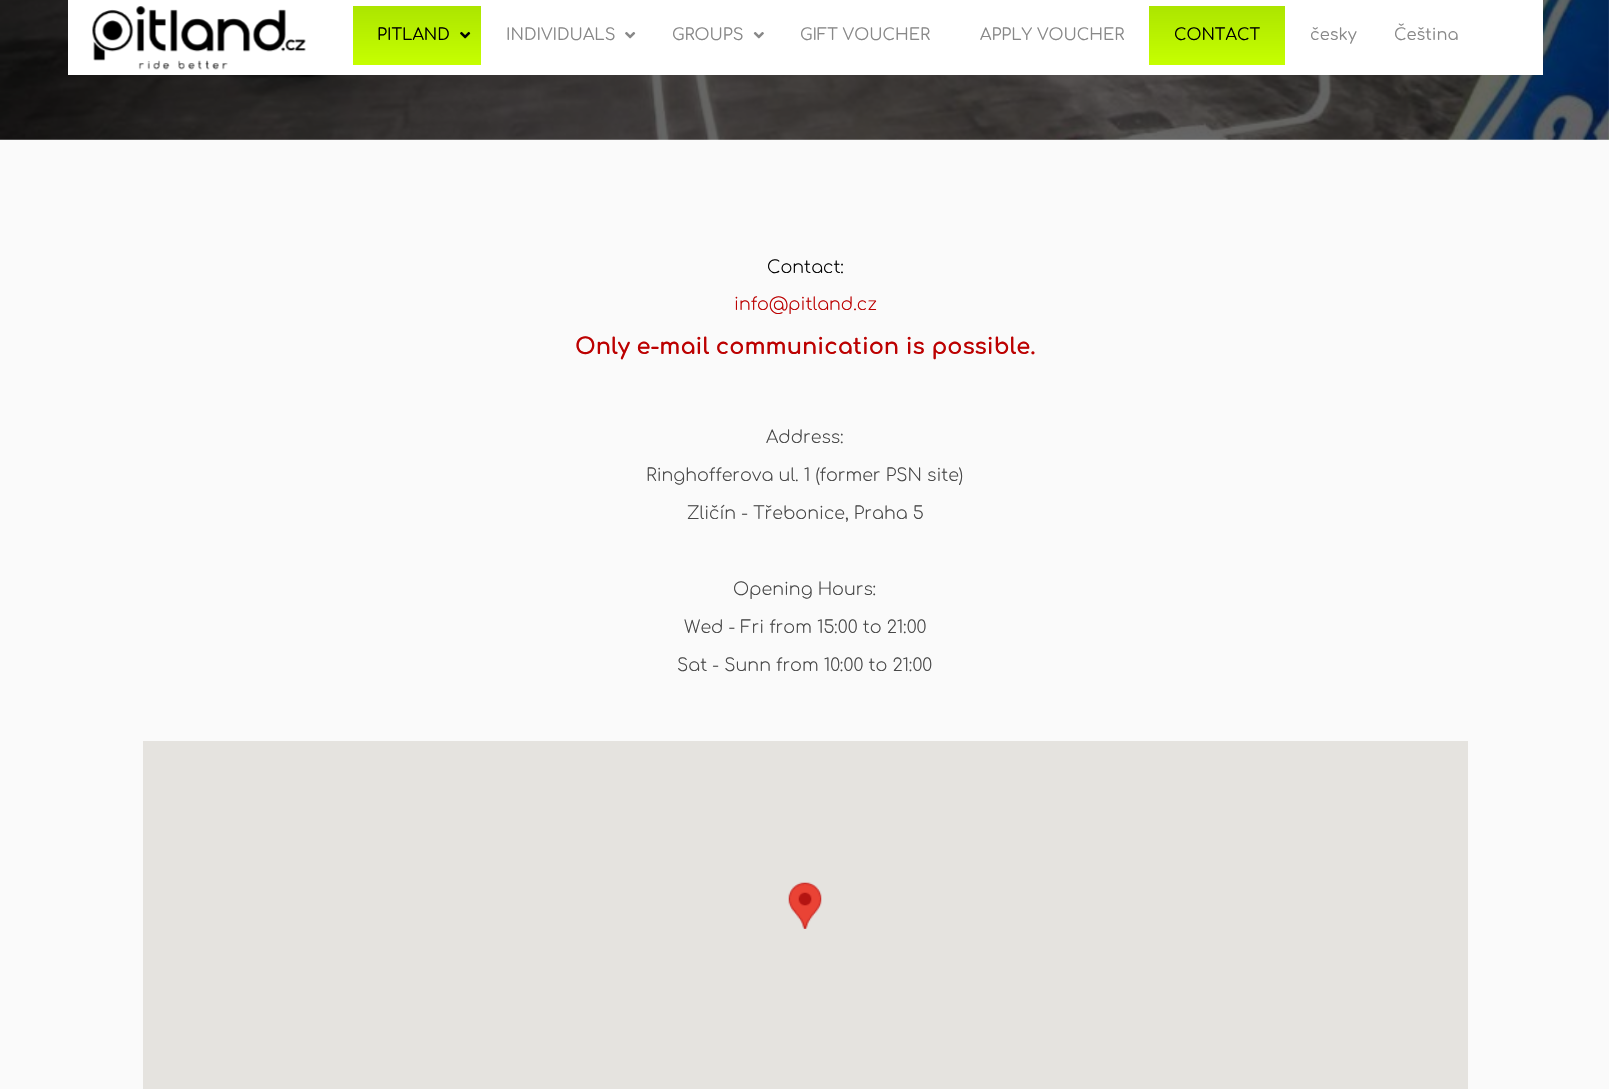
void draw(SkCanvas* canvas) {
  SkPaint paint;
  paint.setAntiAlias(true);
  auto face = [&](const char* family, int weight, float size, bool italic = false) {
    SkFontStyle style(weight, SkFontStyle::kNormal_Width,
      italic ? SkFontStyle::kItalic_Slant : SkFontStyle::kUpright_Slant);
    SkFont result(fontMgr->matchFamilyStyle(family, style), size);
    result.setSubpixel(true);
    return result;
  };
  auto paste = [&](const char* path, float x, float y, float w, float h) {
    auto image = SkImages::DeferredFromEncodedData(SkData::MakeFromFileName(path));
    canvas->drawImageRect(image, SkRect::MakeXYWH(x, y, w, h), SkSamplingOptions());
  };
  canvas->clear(0xffffffff);
  paste("img/1.png", 0, 0, 1609, 140);
  paint.setColor(0xffffffff);
  canvas->drawRect(SkRect::MakeXYWH(68, 0, 1475, 75), paint);
  paste("img/2.png", 92, 6, 214, 64);
  {
    const SkColor colors[] = {0xfface500, 0xffc6ff00};
    const float stops[] = {0, 1};
    const SkPoint ends[] = {{417, 6.2f}, {417, 65}};
    paint.setShader(SkGradientShader::MakeLinear(ends, colors, stops, 2, SkTileMode::kClamp));
    paint.setAlpha(255);
  }
  canvas->drawRect(SkRect::MakeXYWH(353, 6, 128, 59), paint);
  paste("img/3.png", 460, 31, 11, 8);
  paste("img/4.png", 625, 32, 11, 7);
  paste("img/5.png", 753, 32, 11, 7);
  {
    const SkColor colors[] = {0xfface500, 0xffc6ff00};
    const float stops[] = {0, 1};
    const SkPoint ends[] = {{1217, 6.2f}, {1217, 65}};
    paint.setShader(SkGradientShader::MakeLinear(ends, colors, stops, 2, SkTileMode::kClamp));
    paint.setAlpha(255);
  }
  canvas->drawRect(SkRect::MakeXYWH(1149, 6, 136, 59), paint);
  paint.setShader(nullptr);
  paint.setColor(0xfffafafa);
  canvas->drawRect(SkRect::MakeXYWH(0, 140, 1609, 949), paint);
  paint.setColor(0xffe5e3df);
  canvas->drawRect(SkRect::MakeXYWH(143, 741, 1325, 348), paint);
  paste("img/6.png", 788, 882, 34, 47);
  auto f0 = face("Comfortaa", 400, 16.25f);
  paint.setColor(0xff000000);
  canvas->drawString("PITLAND", 377, 40, f0, paint);
  paint.setColor(0xff888888);
  {
    const struct { const char* s; float x, y; } items[] = {
      {"INDIVIDUALS", 506, 40},
      {"GROUPS", 672, 40},
      {"GIFT VOUCHER", 800, 40},
      {"APPLY VOUCHER", 980, 40},
    };
    for (auto [s, x, y] : items) {
      canvas->drawString(s, x, y, f0, paint);
    }
  }
  paint.setColor(0xff000000);
  canvas->drawString("CONTACT", 1174, 40, f0, paint);
  paint.setColor(0xff888888);
  canvas->drawString("česky", 1310, 40, f0, paint);
  canvas->drawString("Čeština", 1394, 40, f0, paint);
  auto f1 = face("Comfortaa", 300, 17.5f);
  paint.setColor(0xff000000);
  canvas->drawString("Contact:", 767, 273, f1, paint);
  paint.setColor(0xffbc0000);
  canvas->drawString("info@pitland.cz", 734, 310, f1, paint);
  auto f2 = face("Comfortaa", 700, 22.5f);
  canvas->drawString("Only e-mail communication is possible.", 575, 354, f2, paint);
  paint.setColor(0xff474747);
  {
    const struct { const char* s; float x, y; } items[] = {
      {"Address:", 766, 443},
      {"Ringhofferova ul. 1 (former PSN site)", 646, 481},
      {"Zličín - Třebonice, Praha 5", 687, 519},
      {"Opening Hours:", 733, 595},
      {"Wed - Fri from 15:00 to 21:00", 684, 633},
      {"Sat - Sunn from 10:00 to 21:00", 677, 671},
    };
    for (auto [s, x, y] : items) {
      canvas->drawString(s, x, y, f1, paint);
    }
  }
}
